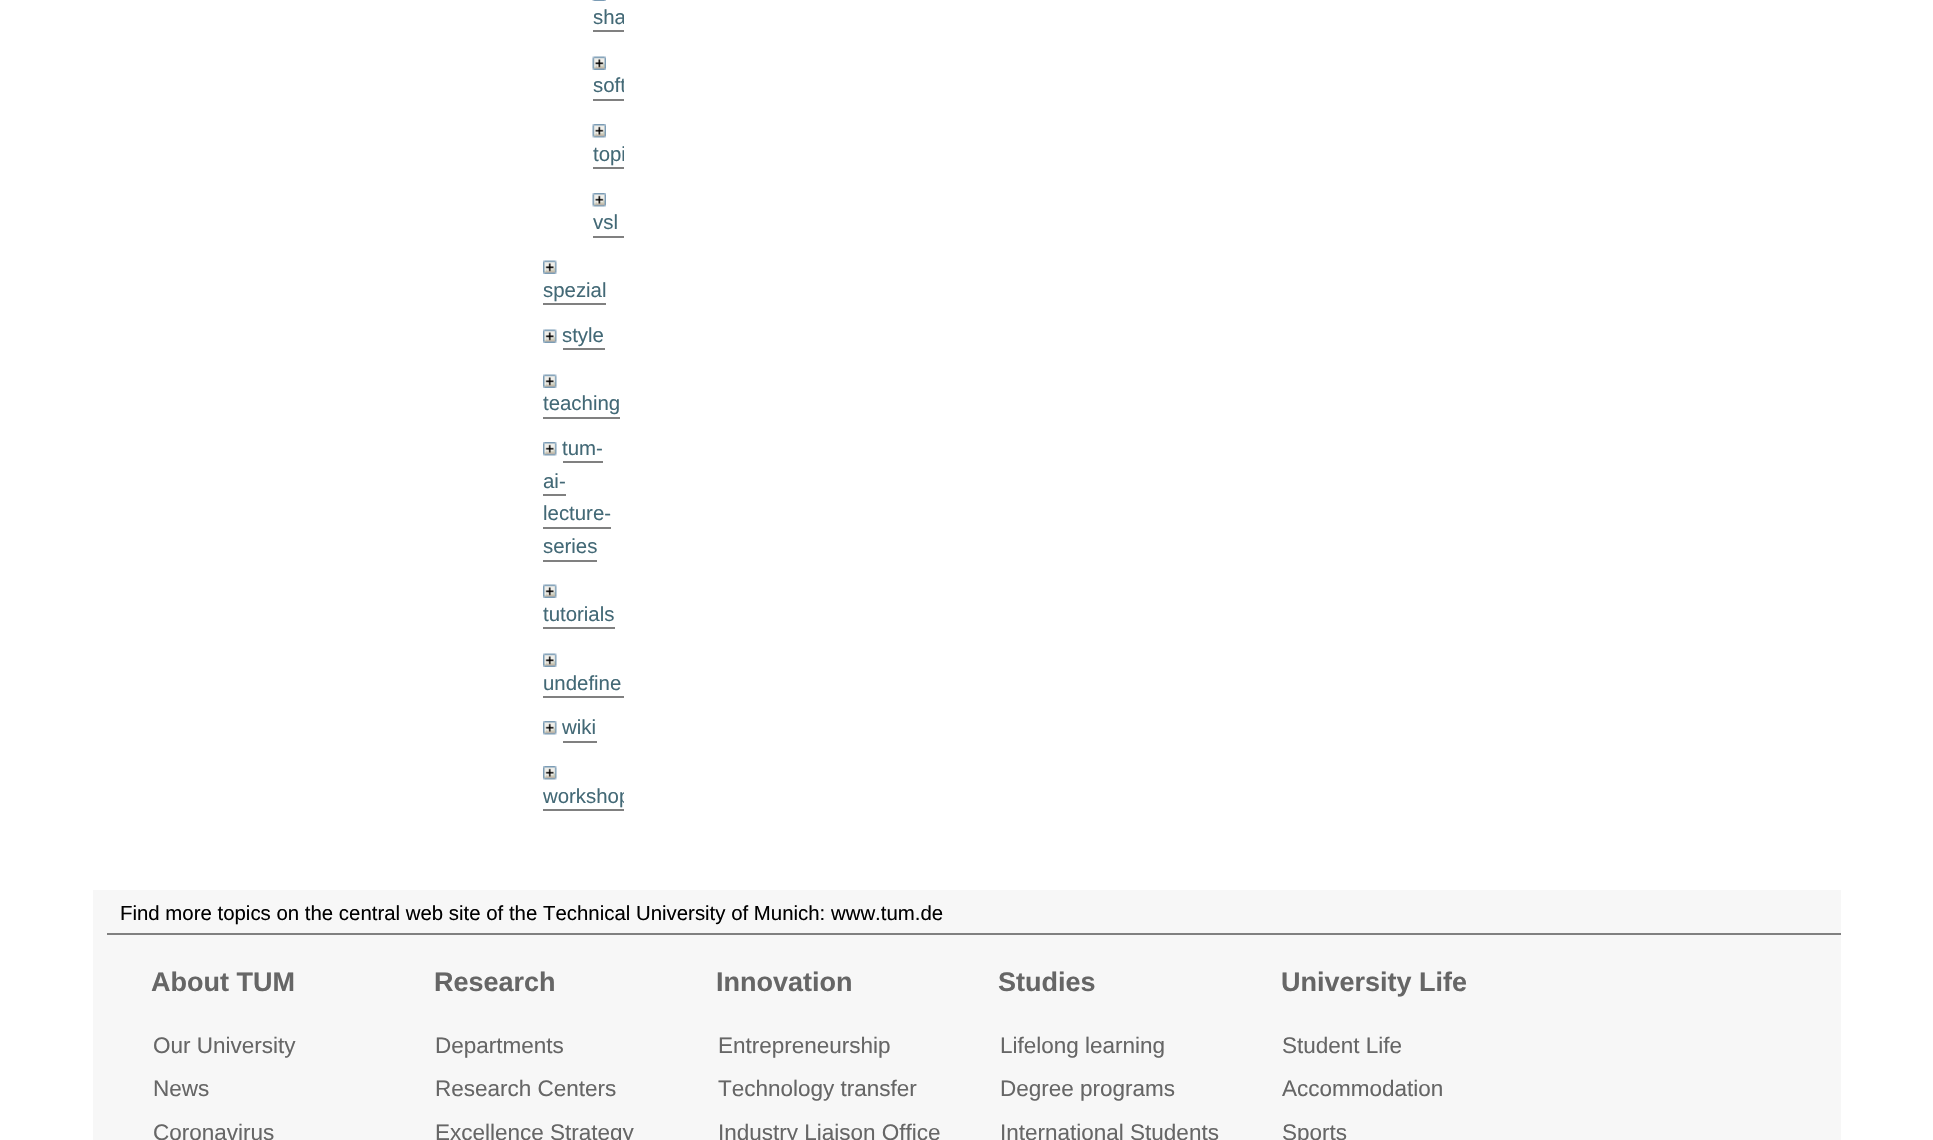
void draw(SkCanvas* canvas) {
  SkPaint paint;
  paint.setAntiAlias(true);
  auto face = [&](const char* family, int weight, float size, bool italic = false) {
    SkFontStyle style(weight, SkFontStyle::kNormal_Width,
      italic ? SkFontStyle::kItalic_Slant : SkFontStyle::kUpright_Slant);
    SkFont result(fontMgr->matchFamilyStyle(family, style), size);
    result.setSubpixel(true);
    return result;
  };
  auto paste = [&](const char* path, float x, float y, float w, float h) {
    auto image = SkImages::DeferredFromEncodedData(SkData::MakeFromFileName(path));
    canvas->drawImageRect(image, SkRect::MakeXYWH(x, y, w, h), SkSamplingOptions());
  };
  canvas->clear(0xffffffff);
  paste("img/1.png", 592, 0, 14, 1);
  paint.setColor(0xff808080);
  canvas->drawRect(SkRect::MakeXYWH(593, 30, 31, 2), paint);
  paste("img/2.png", 592, 56, 14, 14);
  canvas->drawRect(SkRect::MakeXYWH(593, 99, 31, 2), paint);
  paste("img/3.png", 592, 124, 14, 14);
  canvas->drawRect(SkRect::MakeXYWH(593, 167, 31, 2), paint);
  paste("img/3.png", 592, 193, 14, 14);
  canvas->drawRect(SkRect::MakeXYWH(593, 236, 31, 2), paint);
  paste("img/4.png", 543, 260, 14, 14);
  canvas->drawRect(SkRect::MakeXYWH(543, 303, 63, 2), paint);
  paste("img/4.png", 543, 329, 14, 14);
  canvas->drawRect(SkRect::MakeXYWH(563, 348, 42, 2), paint);
  paste("img/4.png", 543, 374, 14, 14);
  {
    const struct { float x, y, w, h; SkColor color; } items[] = {
      {543, 417, 77, 2, 0xff808080},
      {563, 461, 40, 2, 0xff808080},
      {543, 494, 23, 2, 0xff808080},
      {543, 527, 68, 2, 0xff808080},
      {543, 560, 54, 2, 0xff808080},
    };
    for (auto [x, y, w, h, color] : items) {
      paint.setColor(color);
      canvas->drawRect(SkRect::MakeXYWH(x, y, w, h), paint);
    }
  }
  paste("img/5.png", 543, 442, 14, 14);
  paste("img/4.png", 543, 584, 14, 14);
  canvas->drawRect(SkRect::MakeXYWH(543, 627, 72, 2), paint);
  paste("img/4.png", 543, 653, 14, 14);
  canvas->drawRect(SkRect::MakeXYWH(543, 696, 81, 2), paint);
  paste("img/5.png", 543, 721, 14, 14);
  canvas->drawRect(SkRect::MakeXYWH(563, 741, 34, 2), paint);
  paste("img/5.png", 543, 766, 14, 14);
  {
    const struct { float x, y, w, h; SkColor color; } items[] = {
      {543, 809, 81, 2, 0xff808080},
      {93, 890, 1748, 250, 0xfff7f7f7},
      {107, 933, 1734, 2, 0xff808080},
    };
    for (auto [x, y, w, h, color] : items) {
      paint.setColor(color);
      canvas->drawRect(SkRect::MakeXYWH(x, y, w, h), paint);
    }
  }
  canvas->save();
  canvas->clipRect(SkRect::MakeXYWH(459, 0, 165, 825));
  auto f0 = face("Liberation Sans", 400, 20.4f);
  paint.setColor(0xff436976);
  {
    const struct { const char* s; float x, y; } items[] = {
      {"sha", 593, 24},
      {"soft", 593, 92},
      {"topi", 593, 161},
    };
    for (auto [s, x, y] : items) {
      canvas->drawString(s, x, y, f0, paint);
    }
  }
  canvas->restore();
  {
    const struct { const char* s; float x, y; } items[] = {
      {"vsl", 593, 229},
      {"spezial", 543, 297},
      {"style", 562, 342},
      {"teaching", 543, 410},
      {"tum-", 562, 455},
      {"ai-", 543, 488},
      {"lecture-", 543, 520},
      {"series", 543, 553},
      {"tutorials", 543, 621},
      {"undefine", 543, 690},
      {"wiki", 562, 734},
    };
    for (auto [s, x, y] : items) {
      canvas->drawString(s, x, y, f0, paint);
    }
  }
  canvas->save();
  canvas->clipRect(SkRect::MakeXYWH(459, 0, 165, 825));
  canvas->drawString("workshop", 543, 803, f0, paint);
  canvas->restore();
  paint.setColor(0xff000000);
  canvas->drawString("Find more topics on the central web site of the Technical University of Munich: www.tum.de", 120, 920, f0, paint);
  auto f1 = face("Liberation Sans", 700, 27);
  paint.setColor(0xff666666);
  canvas->drawString("About TUM", 151, 991, f1, paint);
  auto f2 = face("Liberation Sans", 400, 22.5f);
  {
    const struct { const char* s; float x, y; } items[] = {
      {"Our University", 153, 1053},
      {"News", 153, 1096},
      {"Coronavirus", 153, 1140},
    };
    for (auto [s, x, y] : items) {
      canvas->drawString(s, x, y, f2, paint);
    }
  }
  canvas->drawString("Research", 434, 991, f1, paint);
  {
    const struct { const char* s; float x, y; } items[] = {
      {"Departments", 435, 1053},
      {"Research Centers", 435, 1096},
      {"Excellence Strategy", 435, 1140},
    };
    for (auto [s, x, y] : items) {
      canvas->drawString(s, x, y, f2, paint);
    }
  }
  canvas->drawString("Innovation", 716, 991, f1, paint);
  {
    const struct { const char* s; float x, y; } items[] = {
      {"Entrepreneurship", 718, 1053},
      {"Technology transfer", 718, 1096},
      {"Industry Liaison Office", 718, 1140},
    };
    for (auto [s, x, y] : items) {
      canvas->drawString(s, x, y, f2, paint);
    }
  }
  canvas->drawString("Studies", 998, 991, f1, paint);
  {
    const struct { const char* s; float x, y; } items[] = {
      {"Lifelong learning", 1000, 1053},
      {"Degree programs", 1000, 1096},
      {"International Students", 1000, 1140},
    };
    for (auto [s, x, y] : items) {
      canvas->drawString(s, x, y, f2, paint);
    }
  }
  canvas->drawString("University Life", 1281, 991, f1, paint);
  {
    const struct { const char* s; float x, y; } items[] = {
      {"Student Life", 1282, 1053},
      {"Accommodation", 1282, 1096},
      {"Sports", 1282, 1140},
    };
    for (auto [s, x, y] : items) {
      canvas->drawString(s, x, y, f2, paint);
    }
  }
}
